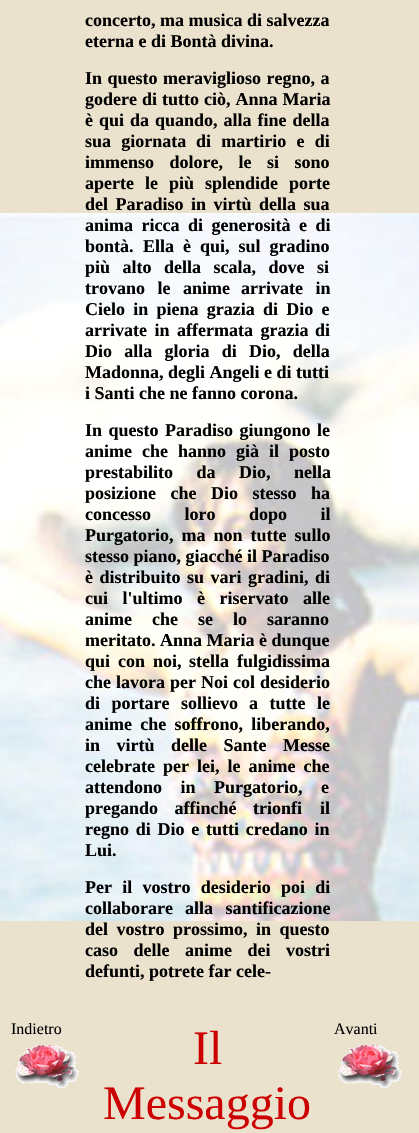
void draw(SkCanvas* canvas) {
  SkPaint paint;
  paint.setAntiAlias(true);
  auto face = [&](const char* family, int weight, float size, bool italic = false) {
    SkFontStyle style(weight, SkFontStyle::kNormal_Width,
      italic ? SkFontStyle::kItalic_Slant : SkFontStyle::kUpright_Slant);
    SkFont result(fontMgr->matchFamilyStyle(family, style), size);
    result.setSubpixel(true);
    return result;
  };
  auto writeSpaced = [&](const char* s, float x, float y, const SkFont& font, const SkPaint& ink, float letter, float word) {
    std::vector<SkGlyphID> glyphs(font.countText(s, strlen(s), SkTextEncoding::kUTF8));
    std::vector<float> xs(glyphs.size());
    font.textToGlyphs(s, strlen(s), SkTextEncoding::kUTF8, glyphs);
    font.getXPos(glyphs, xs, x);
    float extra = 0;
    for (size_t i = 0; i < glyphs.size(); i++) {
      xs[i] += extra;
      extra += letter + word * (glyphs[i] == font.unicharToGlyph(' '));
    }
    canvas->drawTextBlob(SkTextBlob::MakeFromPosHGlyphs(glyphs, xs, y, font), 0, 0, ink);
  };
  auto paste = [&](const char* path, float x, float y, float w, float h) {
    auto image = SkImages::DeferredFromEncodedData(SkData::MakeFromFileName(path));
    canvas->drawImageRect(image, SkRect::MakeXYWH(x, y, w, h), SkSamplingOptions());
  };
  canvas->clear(0xffebe2ce);
  paste("img/1.png", 0, 213, 419, 708);
  paste("img/2.png", 15, 1045, 64, 43);
  paste("img/2.png", 338, 1045, 64, 43);
  auto f0 = face("Liberation Serif", 700, 18);
  paint.setColor(0xff000000);
  canvas->drawString("concerto, ma musica di salvezza", 85, 26, f0, paint);
  canvas->drawString("eterna e di Bontà divina.", 85, 47, f0, paint);
  writeSpaced("In questo meraviglioso regno, a", 85, 84, f0, paint, 0, 1);
  canvas->drawString("godere", 85, 105, f0, paint);
  writeSpaced("di tutto ciò, Anna Maria", 142, 105, f0, paint, 0, 0.5f);
  writeSpaced("è qui da quando, alla fine della", 85, 126, f0, paint, 0, 1.5f);
  writeSpaced("sua giornata", 85, 147, f0, paint, 0, 5.75f);
  writeSpaced("di martirio e di", 196, 147, f0, paint, 0, 5.75f);
  writeSpaced("immenso dolore, le si sono", 85, 168, f0, paint, 0, 11);
  writeSpaced("aperte le più splendide porte", 85, 189, f0, paint, 0, 6.5f);
  writeSpaced("del Paradiso in virtù della sua", 85, 210, f0, paint, 0, 3);
  writeSpaced("anima ricca di generosità e di", 85, 231, f0, paint, 0, 4);
  canvas->drawString("bontà.", 85, 252, f0, paint);
  writeSpaced("Ella è qui, sul gradino", 143, 252, f0, paint, 0, 4.5f);
  {
    const struct { const char* s; float x, y; } items[] = {
      {"più alto della scala, dove si", 85, 273},
      {"trovano le anime", 85, 294},
      {"arrivate in", 241, 294},
    };
    for (auto [s, x, y] : items) {
      writeSpaced(s, x, y, f0, paint, 0, 8);
    }
  }
  writeSpaced("Cielo in piena grazia di Dio e", 85, 315, f0, paint, 0, 3.75f);
  writeSpaced("arrivate in affermata grazia", 85, 336, f0, paint, 0, 3);
  canvas->drawString("di", 315, 336, f0, paint);
  writeSpaced("Dio alla gloria di Dio, della", 85, 357, f0, paint, 0, 7.75f);
  canvas->drawString("Madonna, degli Angeli e di tutti", 85, 378, f0, paint);
  canvas->drawString("i Santi che ne fanno corona.", 85, 399, f0, paint);
  writeSpaced("In questo Paradiso giungono le", 85, 436, f0, paint, 0, 2);
  canvas->drawString("anime", 85, 457, f0, paint);
  writeSpaced("che hanno già il posto", 142, 457, f0, paint, 0, 5.5f);
  writeSpaced("prestabilito da Dio, nella", 85, 478, f0, paint, 0, 19);
  writeSpaced("posizione che Dio stesso", 85, 499, f0, paint, 0, 10);
  canvas->drawString("ha", 311, 499, f0, paint);
  writeSpaced("concesso loro dopo il", 85, 520, f0, paint, 0, 29);
  writeSpaced("Purgatorio, ma non tutte sullo", 85, 541, f0, paint, 0, 3.5f);
  canvas->drawString("stesso piano, giacché il Paradiso", 85, 562, f0, paint);
  writeSpaced("è distribuito su vari gradini, di", 85, 583, f0, paint, 0, 2);
  writeSpaced("cui l'ultimo è riservato", 85, 604, f0, paint, 0, 10);
  canvas->drawString("alle", 303, 604, f0, paint);
  writeSpaced("anime che se lo saranno", 85, 625, f0, paint, 0, 15.5f);
  canvas->drawString("meritato. Anna Maria è dunque", 85, 646, f0, paint);
  writeSpaced("qui con noi,", 85, 667, f0, paint, 0, 3.5f);
  writeSpaced("stella fulgidissima", 189, 667, f0, paint, 0, 3.5f);
  writeSpaced("che lavora per Noi col desiderio", 85, 688, f0, paint, 0, 0.5f);
  writeSpaced("di portare sollievo", 85, 709, f0, paint, 0, 7);
  writeSpaced("a tutte le", 249, 709, f0, paint, 0, 7);
  writeSpaced("anime che soffrono, liberando,", 85, 730, f0, paint, 0, 3.75f);
  writeSpaced("in virtù delle Sante Messe", 85, 751, f0, paint, 0, 12);
  canvas->drawString("celebrate", 85, 772, f0, paint);
  writeSpaced("per lei, le anime che", 163, 772, f0, paint, 0, 3.5f);
  writeSpaced("attendono in Purgatorio, e", 85, 793, f0, paint, 0, 14);
  writeSpaced("pregando affinché trionfi", 85, 814, f0, paint, 0, 12);
  canvas->drawString("il", 320, 814, f0, paint);
  writeSpaced("regno di Dio e tutti credano in", 85, 835, f0, paint, 0, 2.25f);
  canvas->drawString("Lui.", 85, 856, f0, paint);
  writeSpaced("Per il vostro desiderio poi di", 85, 893, f0, paint, 0, 5.75f);
  canvas->drawString("collaborare", 85, 914, f0, paint);
  writeSpaced("alla santificazione", 185, 914, f0, paint, 0, 8);
  writeSpaced("del vostro prossimo, in questo", 85, 935, f0, paint, 0, 4);
  writeSpaced("caso delle anime dei", 85, 956, f0, paint, 0, 11);
  canvas->drawString("vostri", 286, 956, f0, paint);
  canvas->drawString("defunti, potrete far cele-", 85, 977, f0, paint);
  auto f1 = face("Liberation Serif", 400, 16);
  canvas->drawString("Indietro", 11, 1034, f1, paint);
  auto f2 = face("Liberation Serif", 400, 48);
  paint.setColor(0xffcc0000);
  canvas->drawString("Il", 193, 1064, f2, paint);
  canvas->drawString("Messaggio", 103, 1119, f2, paint);
  paint.setColor(0xff000000);
  canvas->drawString("Avanti", 334, 1034, f1, paint);
}
